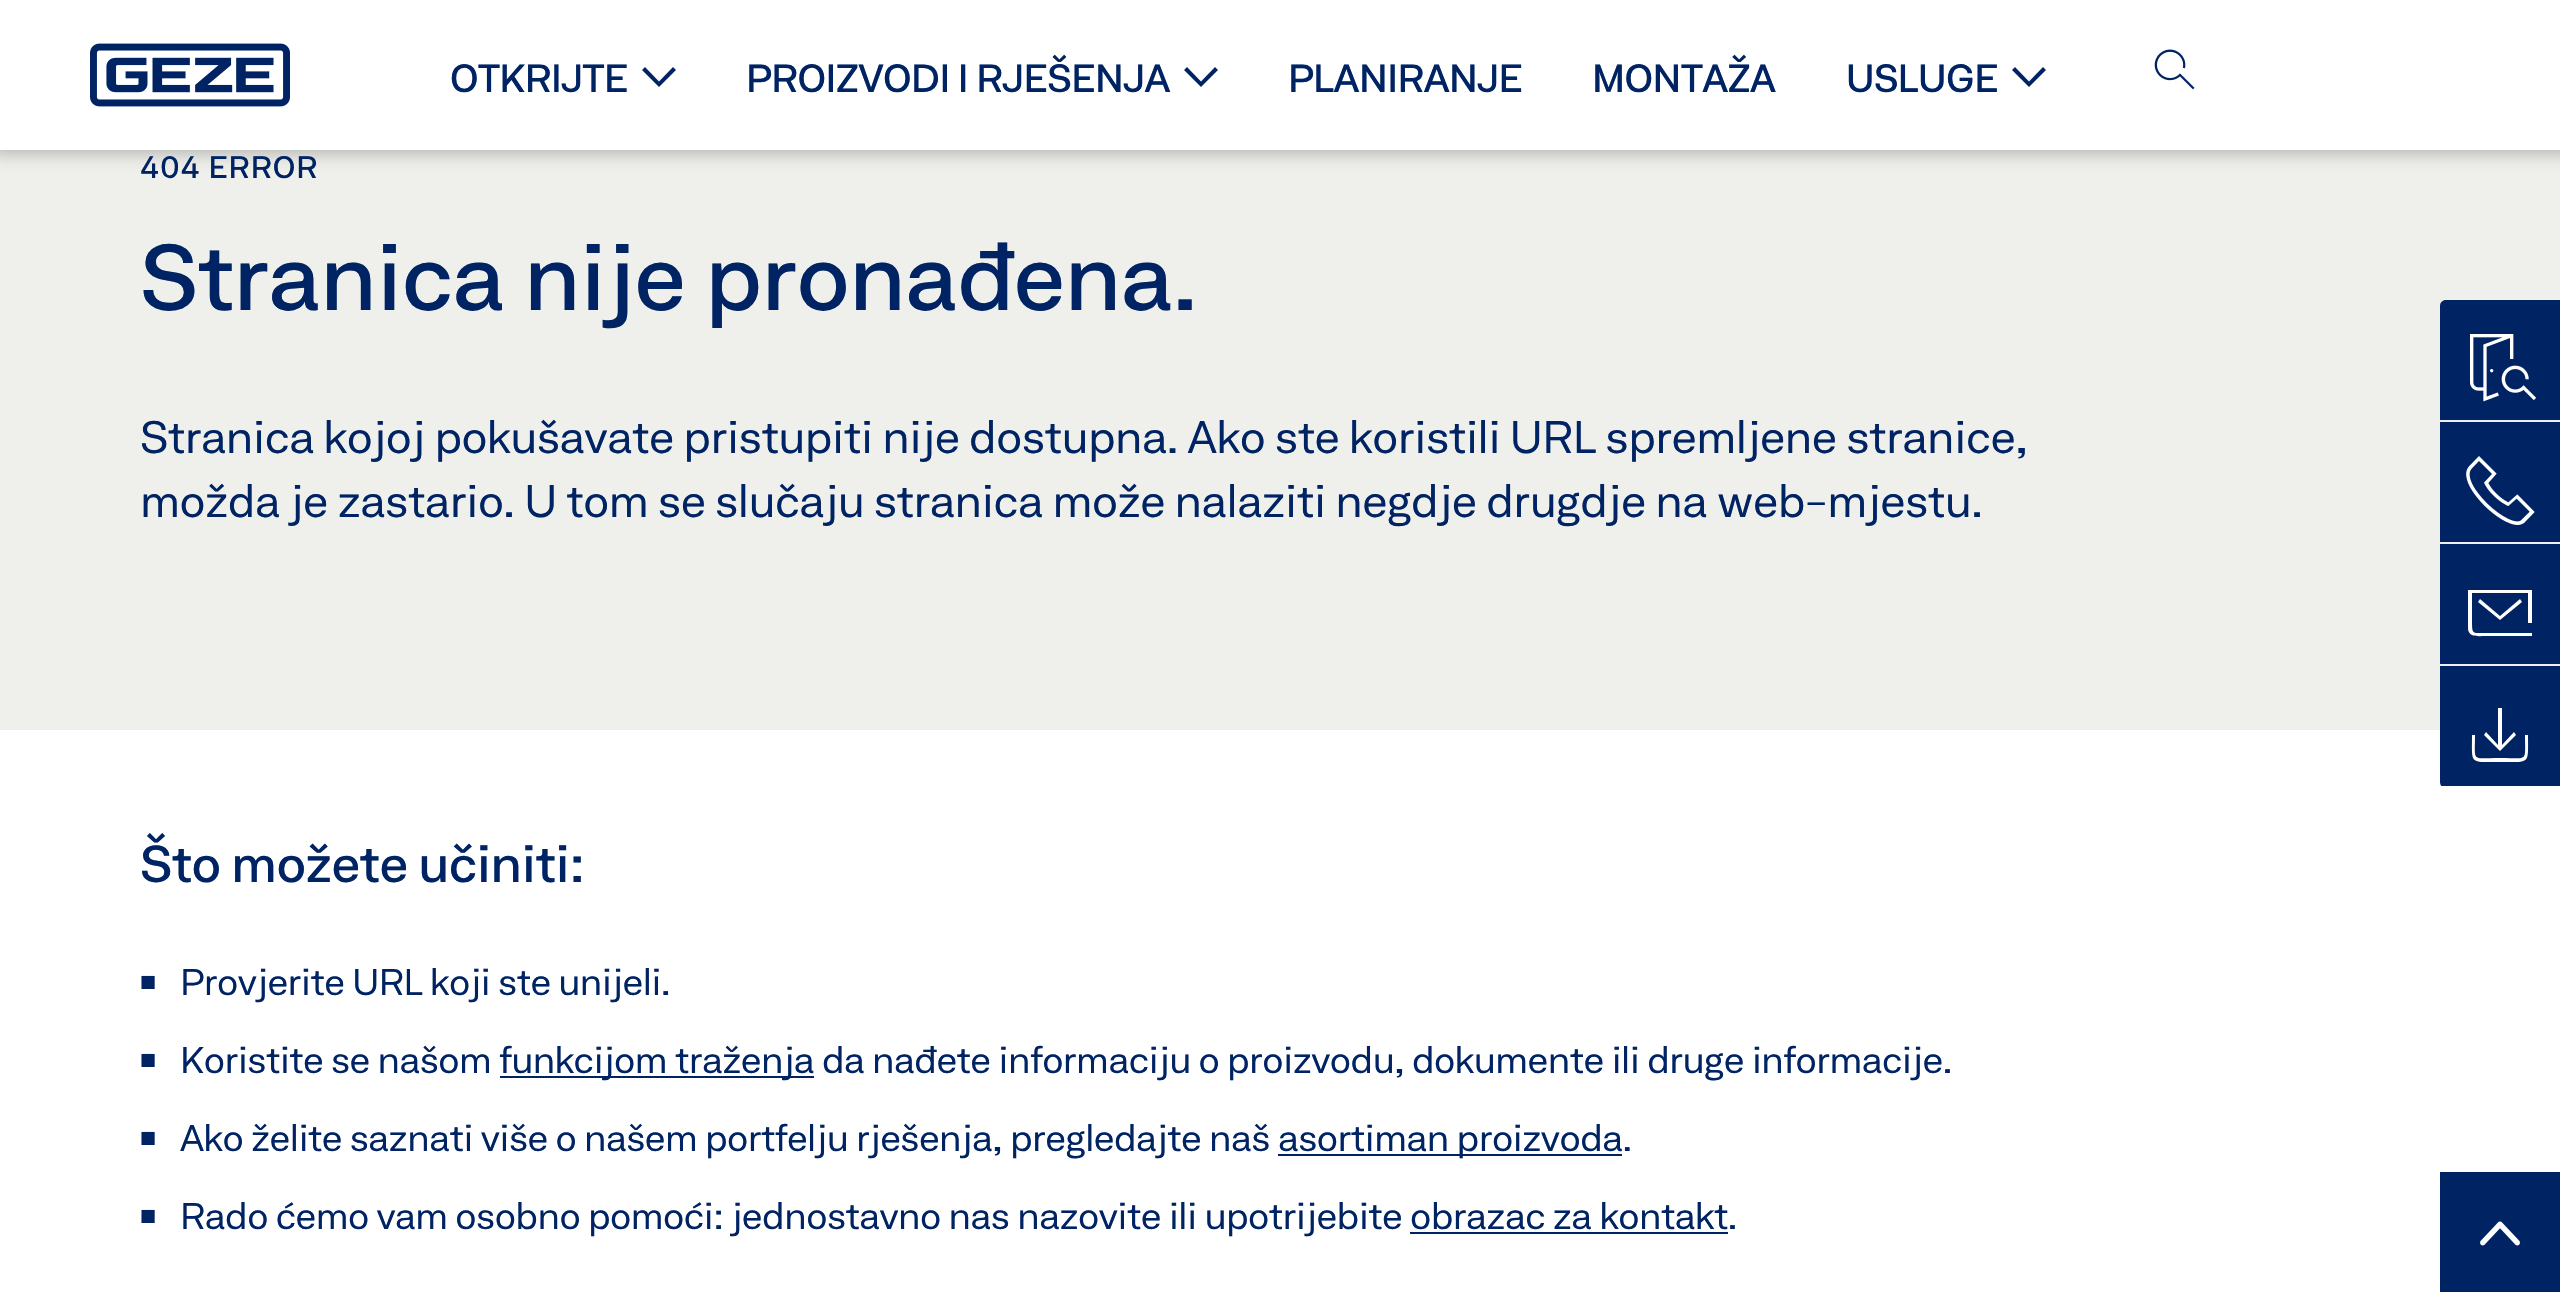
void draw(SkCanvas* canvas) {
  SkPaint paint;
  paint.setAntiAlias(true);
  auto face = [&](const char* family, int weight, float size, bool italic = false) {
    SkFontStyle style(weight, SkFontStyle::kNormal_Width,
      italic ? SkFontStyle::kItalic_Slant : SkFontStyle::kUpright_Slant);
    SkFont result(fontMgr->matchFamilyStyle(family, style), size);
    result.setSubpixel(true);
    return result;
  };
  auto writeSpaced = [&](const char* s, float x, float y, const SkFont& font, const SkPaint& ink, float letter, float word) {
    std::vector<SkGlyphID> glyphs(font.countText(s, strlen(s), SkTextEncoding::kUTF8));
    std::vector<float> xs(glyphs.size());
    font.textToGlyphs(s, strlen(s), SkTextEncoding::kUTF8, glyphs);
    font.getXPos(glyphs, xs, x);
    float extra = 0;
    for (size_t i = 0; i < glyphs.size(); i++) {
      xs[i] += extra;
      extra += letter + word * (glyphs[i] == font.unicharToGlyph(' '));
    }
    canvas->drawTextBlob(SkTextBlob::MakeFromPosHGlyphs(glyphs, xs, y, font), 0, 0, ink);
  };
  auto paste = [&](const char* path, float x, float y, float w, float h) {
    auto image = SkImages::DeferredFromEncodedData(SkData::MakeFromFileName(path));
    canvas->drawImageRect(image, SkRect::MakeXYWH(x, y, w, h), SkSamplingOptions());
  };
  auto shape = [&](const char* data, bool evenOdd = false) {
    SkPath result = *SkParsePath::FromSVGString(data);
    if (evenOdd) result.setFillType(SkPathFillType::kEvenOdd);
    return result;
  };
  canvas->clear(0xffffffff);
  paint.setColor(0xffeff0ec);
  canvas->drawRect(SkRect::MakeXYWH(0, 150, 2560, 580), paint);
  paint.setColor(0x804a4a48);
  paint.setMaskFilter(SkMaskFilter::MakeBlur(kNormal_SkBlurStyle, 10));
  canvas->drawRect(SkRect::MakeXYWH(-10, 0, 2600, 150), paint);
  paint.setMaskFilter(nullptr);
  paint.setColor(0xffffffff);
  canvas->drawRect(SkRect::MakeXYWH(0, 0, 2560, 150), paint);
  paste("img/1.png", 90, 43, 200, 64);
  paint.setColor(0xff002364);
  canvas->drawPath(shape("M659 87L642 70L645 67L659 81.5L673 67L676 70Z"), paint);
  canvas->drawPath(shape("M1201 87L1184 70L1187 67L1201 81.5L1215 67L1218 70Z"), paint);
  canvas->drawPath(shape("M2029 87L2012 70L2015 67L2029 81.5L2043 67L2046 70Z"), paint);
  paste("img/2.png", 2154, 49, 41, 41);
  {
    const struct { float x, y, w, h; SkColor color; } items[] = {
      {500, 1076, 314, 2, 0xff002364},
      {1278, 1154, 344, 2, 0xff002364},
      {1410, 1232, 318, 2, 0xff002364},
    };
    for (auto [x, y, w, h, color] : items) {
      paint.setColor(color);
      canvas->drawRect(SkRect::MakeXYWH(x, y, w, h), paint);
    }
  }
  canvas->drawPath(shape("M2446 300H2560V420H2440V306C2440 302.5 2442.5 300 2446 300Z"), paint);
  paste("img/3.png", 2470, 334, 67, 68);
  canvas->drawRect(SkRect::MakeXYWH(2440, 422, 120, 120), paint);
  paste("img/4.png", 2466, 456, 69, 69);
  canvas->drawRect(SkRect::MakeXYWH(2440, 544, 120, 120), paint);
  paint.setColor(0xffffffff);
  canvas->drawPath(shape("M2468 628C2468 638 2479 636 2486 636H2532V633H2486C2473 633 2472 635 2472 622V593H2528V623H2532V590H2468ZM2500 620L2478 602L2480 599L2500 616L2520 599L2522 602Z"), paint);
  canvas->save();
  canvas->clipPath(shape("M2446 300H2560V788H2446C2442.5 788 2440 785.5 2440 782V306C2440 302.5 2442.5 300 2446 300Z"), true);
  paint.setColor(0xff002364);
  canvas->drawRect(SkRect::MakeXYWH(2440, 666, 120, 120), paint);
  canvas->restore();
  paint.setColor(0xffffffff);
  canvas->drawPath(shape("M2525 735C2525 763 2529 758 2500 758C2471 758 2475 763 2475 735H2472C2472 765 2469 762 2500 762C2531 762 2528 765 2528 735ZM2516 735L2514 732L2502 745V708H2498V745L2486 732L2484 735L2500 751Z"), paint);
  paint.setColor(0xff002364);
  canvas->drawRect(SkRect::MakeXYWH(2440, 1172, 120, 120), paint);
  paste("img/5.png", 2480, 1221, 40, 25);
  auto f0 = face("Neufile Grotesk", 500, 38);
  {
    const struct { const char* s; float x, y; } items[] = {
      {"OTKRIJTE", 450, 92},
      {"PROIZVODI I RJEŠENJA", 746, 92},
      {"PLANIRANJE", 1288, 92},
      {"MONTAŽA", 1592, 92},
      {"USLUGE", 1846, 92},
    };
    for (auto [s, x, y] : items) {
      writeSpaced(s, x, y, f0, paint, -0.5f, 0);
    }
  }
  auto f1 = face("Neufile Grotesk", 500, 30);
  writeSpaced("404 ERROR", 140, 178, f1, paint, 1, 0);
  auto f2 = face("Neufile Grotesk", 500, 90);
  writeSpaced("Stranica nije pronađena.", 140, 310, f2, paint, -0.5f, 0);
  auto f3 = face("Neufile Grotesk", 400, 44);
  writeSpaced("Stranica kojoj pokušavate pristupiti nije dostupna. Ako ste koristili URL spremljene stranice,", 140, 453, f3, paint, -0.5f, 0);
  writeSpaced("možda je zastario. U tom se slučaju stranica može nalaziti negdje drugdje na web-mjestu.", 140, 517, f3, paint, -0.5f, 0);
  auto f4 = face("Neufile Grotesk", 500, 50);
  writeSpaced("Što možete učiniti:", 140, 882, f4, paint, -0.5f, 0);
  auto f5 = face("Neufile Grotesk", 400, 18);
  writeSpaced("■", 140, 989, f5, paint, -0.5f, 0);
  auto f6 = face("Neufile Grotesk", 400, 36);
  writeSpaced("Provjerite URL koji ste unijeli.", 180, 995, f6, paint, -0.5f, 0);
  writeSpaced("■", 140, 1067, f5, paint, -0.5f, 0);
  writeSpaced("Koristite se našom", 180, 1073, f6, paint, -0.5f, 0);
  writeSpaced("funkcijom traženja da nađete informaciju o proizvodu, dokumente ili druge informacije.", 499, 1073, f6, paint, -0.5f, 0);
  writeSpaced("■", 140, 1145, f5, paint, -0.5f, 0);
  writeSpaced("Ako želite saznati više o našem portfelju rješenja, pregledajte naš", 180, 1151, f6, paint, -0.5f, 0);
  writeSpaced("asortiman proizvoda.", 1278, 1151, f6, paint, -0.5f, 0);
  writeSpaced("■", 140, 1223, f5, paint, -0.5f, 0);
  writeSpaced("Rado ćemo vam osobno pomoći: jednostavno nas nazovite ili upotrijebite obrazac za kontakt.", 180, 1229, f6, paint, -0.5f, 0);
}
